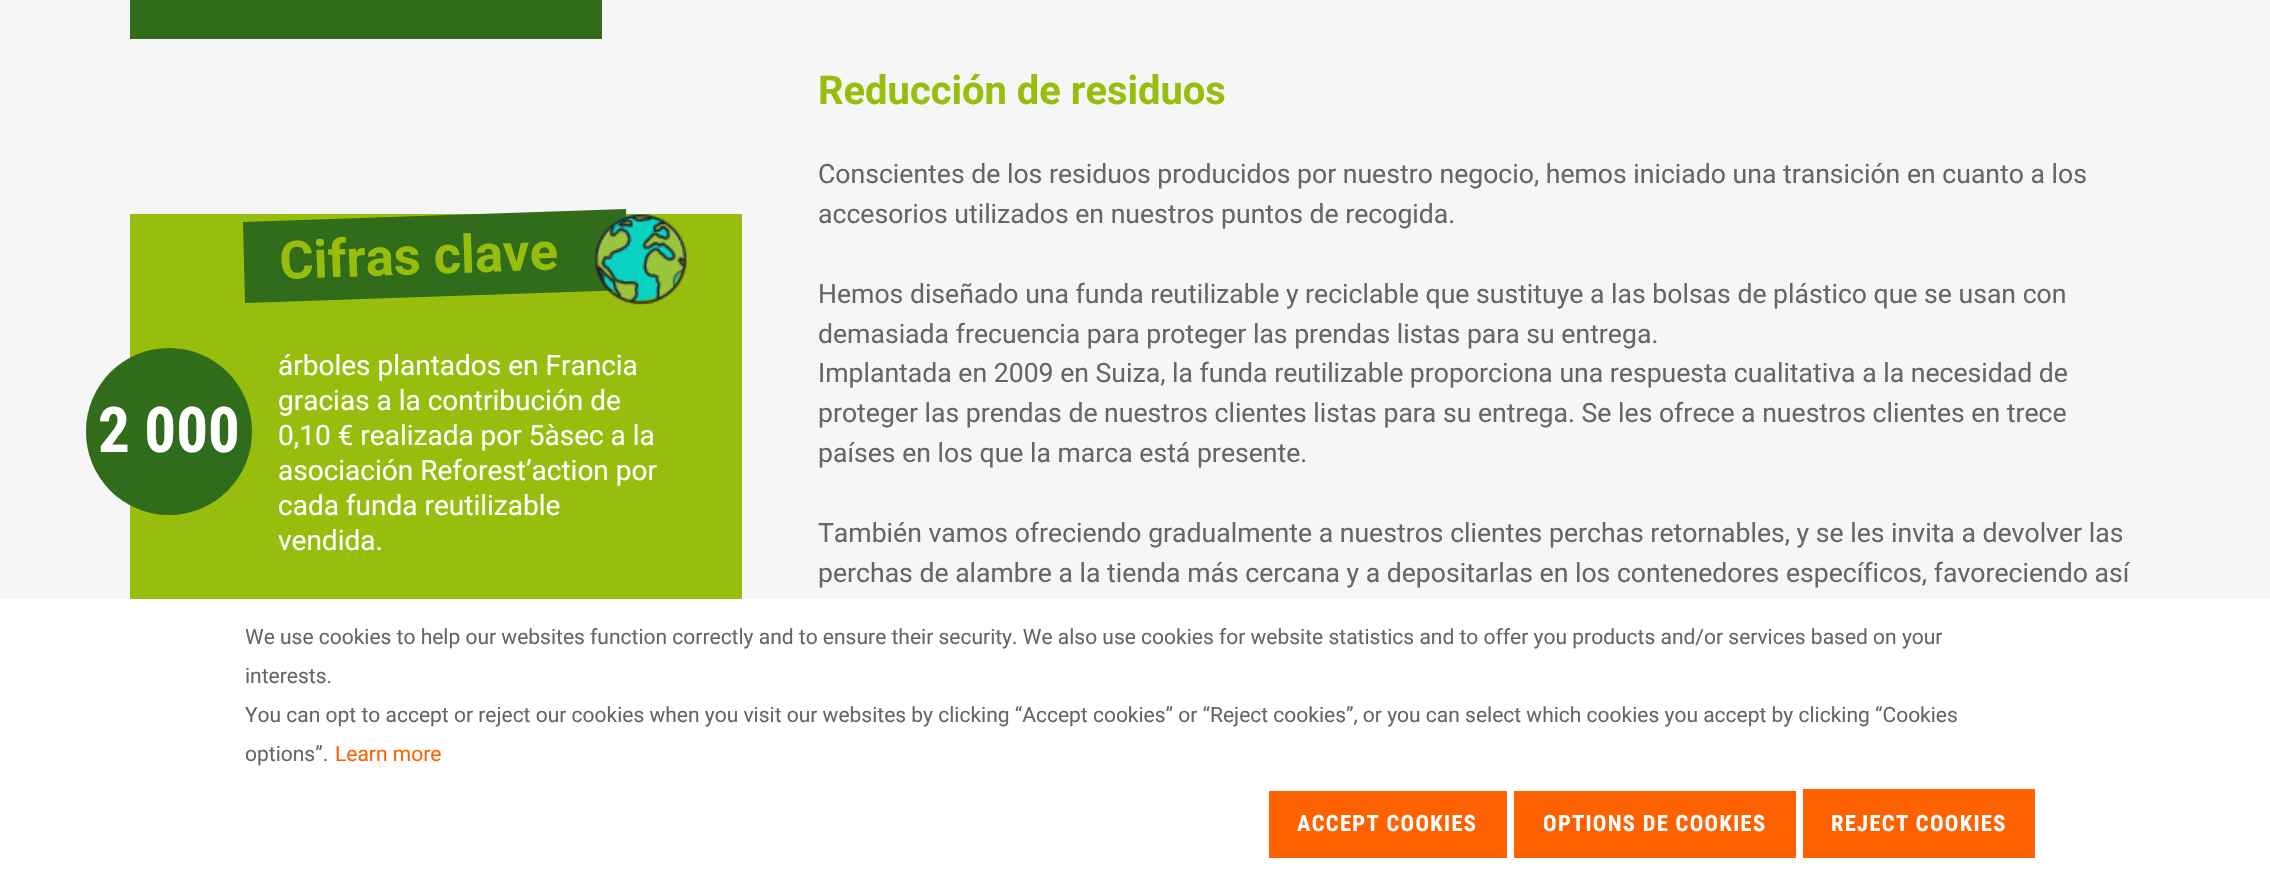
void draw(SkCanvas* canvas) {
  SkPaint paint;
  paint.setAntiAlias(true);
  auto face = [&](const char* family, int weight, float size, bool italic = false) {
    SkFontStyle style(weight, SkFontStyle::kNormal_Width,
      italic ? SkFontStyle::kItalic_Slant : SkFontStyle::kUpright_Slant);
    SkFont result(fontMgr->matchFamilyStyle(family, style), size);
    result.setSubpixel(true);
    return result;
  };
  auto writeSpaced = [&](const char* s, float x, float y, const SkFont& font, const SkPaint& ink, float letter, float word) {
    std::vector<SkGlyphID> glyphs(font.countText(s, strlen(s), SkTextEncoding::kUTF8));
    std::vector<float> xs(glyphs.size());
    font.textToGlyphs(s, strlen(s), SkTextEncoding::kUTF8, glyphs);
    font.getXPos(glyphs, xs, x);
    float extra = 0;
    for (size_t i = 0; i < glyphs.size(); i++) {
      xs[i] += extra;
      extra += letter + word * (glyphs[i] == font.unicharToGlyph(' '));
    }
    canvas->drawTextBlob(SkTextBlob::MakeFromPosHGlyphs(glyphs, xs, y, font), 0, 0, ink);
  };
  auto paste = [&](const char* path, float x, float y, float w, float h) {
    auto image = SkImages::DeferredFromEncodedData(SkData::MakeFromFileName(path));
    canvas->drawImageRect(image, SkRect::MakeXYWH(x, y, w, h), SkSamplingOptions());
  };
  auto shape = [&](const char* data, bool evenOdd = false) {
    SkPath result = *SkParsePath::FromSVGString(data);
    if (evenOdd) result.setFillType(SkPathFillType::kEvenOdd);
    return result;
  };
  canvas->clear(0xfff6f6f6);
  paint.setColor(0xff306c1a);
  canvas->drawRect(SkRect::MakeXYWH(130, 0, 472, 39), paint);
  paint.setColor(0xff97be0c);
  canvas->drawRect(SkRect::MakeXYWH(130, 214, 612, 385), paint);
  paint.setColor(0xff306c1a);
  canvas->drawPath(shape("M243 222L626 209L629 290L245 303Z"), paint);
  paste("img/1.png", 594, 213, 93, 92);
  canvas->drawRoundRect(SkRect::MakeXYWH(86, 348, 166, 167), 83, 83, paint);
  {
    const struct { float x, y, w, h; SkColor color; } items[] = {
      {0, 599, 2270, 286, 0xffffffff},
      {1269, 791, 238, 67, 0xfffe6100},
      {1514, 791, 282, 67, 0xfffe6100},
      {1803, 789, 232, 69, 0xfffe6100},
    };
    for (auto [x, y, w, h, color] : items) {
      paint.setColor(color);
      canvas->drawRect(SkRect::MakeXYWH(x, y, w, h), paint);
    }
  }
  auto f0 = face("Roboto", 700, 52.5f);
  paint.setColor(0xff97be0c);
  canvas->save();
  canvas->rotate(-2, 280, 279);
  canvas->drawString("Cifras clave", 280, 279, f0, paint);
  canvas->restore();
  auto f1 = face("Roboto Condensed", 700, 63);
  paint.setColor(0xffffffff);
  canvas->drawString("2 000", 98, 452, f1, paint);
  auto f2 = face("Roboto", 400, 28);
  {
    const struct { const char* s; float x, y; } items[] = {
      {"árboles plantados en Francia", 278, 375},
      {"gracias a la contribución de", 278, 410},
      {"0,10 € realizada por 5àsec a la", 278, 445},
      {"asociación Reforest’action por", 278, 480},
      {"cada funda reutilizable", 278, 515},
      {"vendida.", 278, 550},
    };
    for (auto [s, x, y] : items) {
      canvas->drawString(s, x, y, f2, paint);
    }
  }
  auto f3 = face("Roboto", 700, 39.9f);
  paint.setColor(0xff97be0c);
  canvas->drawString("Reducción de residuos", 818, 104, f3, paint);
  auto f4 = face("Roboto", 400, 26.6f);
  paint.setColor(0xff666666);
  {
    const struct { const char* s; float x, y; } items[] = {
      {"Conscientes de los residuos producidos por nuestro negocio, hemos iniciado una transición en cuanto a los", 818, 183},
      {"accesorios utilizados en nuestros puntos de recogida.", 818, 223},
      {"Hemos diseñado una funda reutilizable y reciclable que sustituye a las bolsas de plástico que se usan con", 818, 303},
      {"demasiada frecuencia para proteger las prendas listas para su entrega.", 818, 343},
      {"Implantada en 2009 en Suiza, la funda reutilizable proporciona una respuesta cualitativa a la necesidad de", 818, 382},
      {"proteger las prendas de nuestros clientes listas para su entrega. Se les ofrece a nuestros clientes en trece", 818, 422},
      {"países en los que la marca está presente.", 818, 462},
      {"También vamos ofreciendo gradualmente a nuestros clientes perchas retornables, y se les invita a devolver las", 818, 542},
      {"perchas de alambre a la tienda más cercana y a depositarlas en los contenedores específicos, favoreciendo así", 818, 582},
    };
    for (auto [s, x, y] : items) {
      canvas->drawString(s, x, y, f4, paint);
    }
  }
  auto f5 = face("Roboto", 400, 21);
  {
    const struct { const char* s; float x, y; } items[] = {
      {"We use cookies to help our websites function correctly and to ensure their security. We also use cookies for website statistics and to offer you products and/or services based on your", 245, 644},
      {"interests.", 245, 683},
      {"You can opt to accept or reject our cookies when you visit our websites by clicking “Accept cookies” or “Reject cookies”, or you can select which cookies you accept by clicking “Cookies", 245, 722},
      {"options”.", 245, 761},
    };
    for (auto [s, x, y] : items) {
      canvas->drawString(s, x, y, f5, paint);
    }
  }
  paint.setColor(0xfffe6100);
  canvas->drawString("Learn more", 335, 761, f5, paint);
  auto f6 = face("Roboto Condensed", 700, 22.5f);
  paint.setColor(0xffffffff);
  {
    const struct { const char* s; float x, y; } items[] = {
      {"ACCEPT COOKIES", 1297, 831},
      {"OPTIONS DE COOKIES", 1543, 831},
      {"REJECT COOKIES", 1831, 831},
    };
    for (auto [s, x, y] : items) {
      writeSpaced(s, x, y, f6, paint, 1.3f, 0);
    }
  }
}
